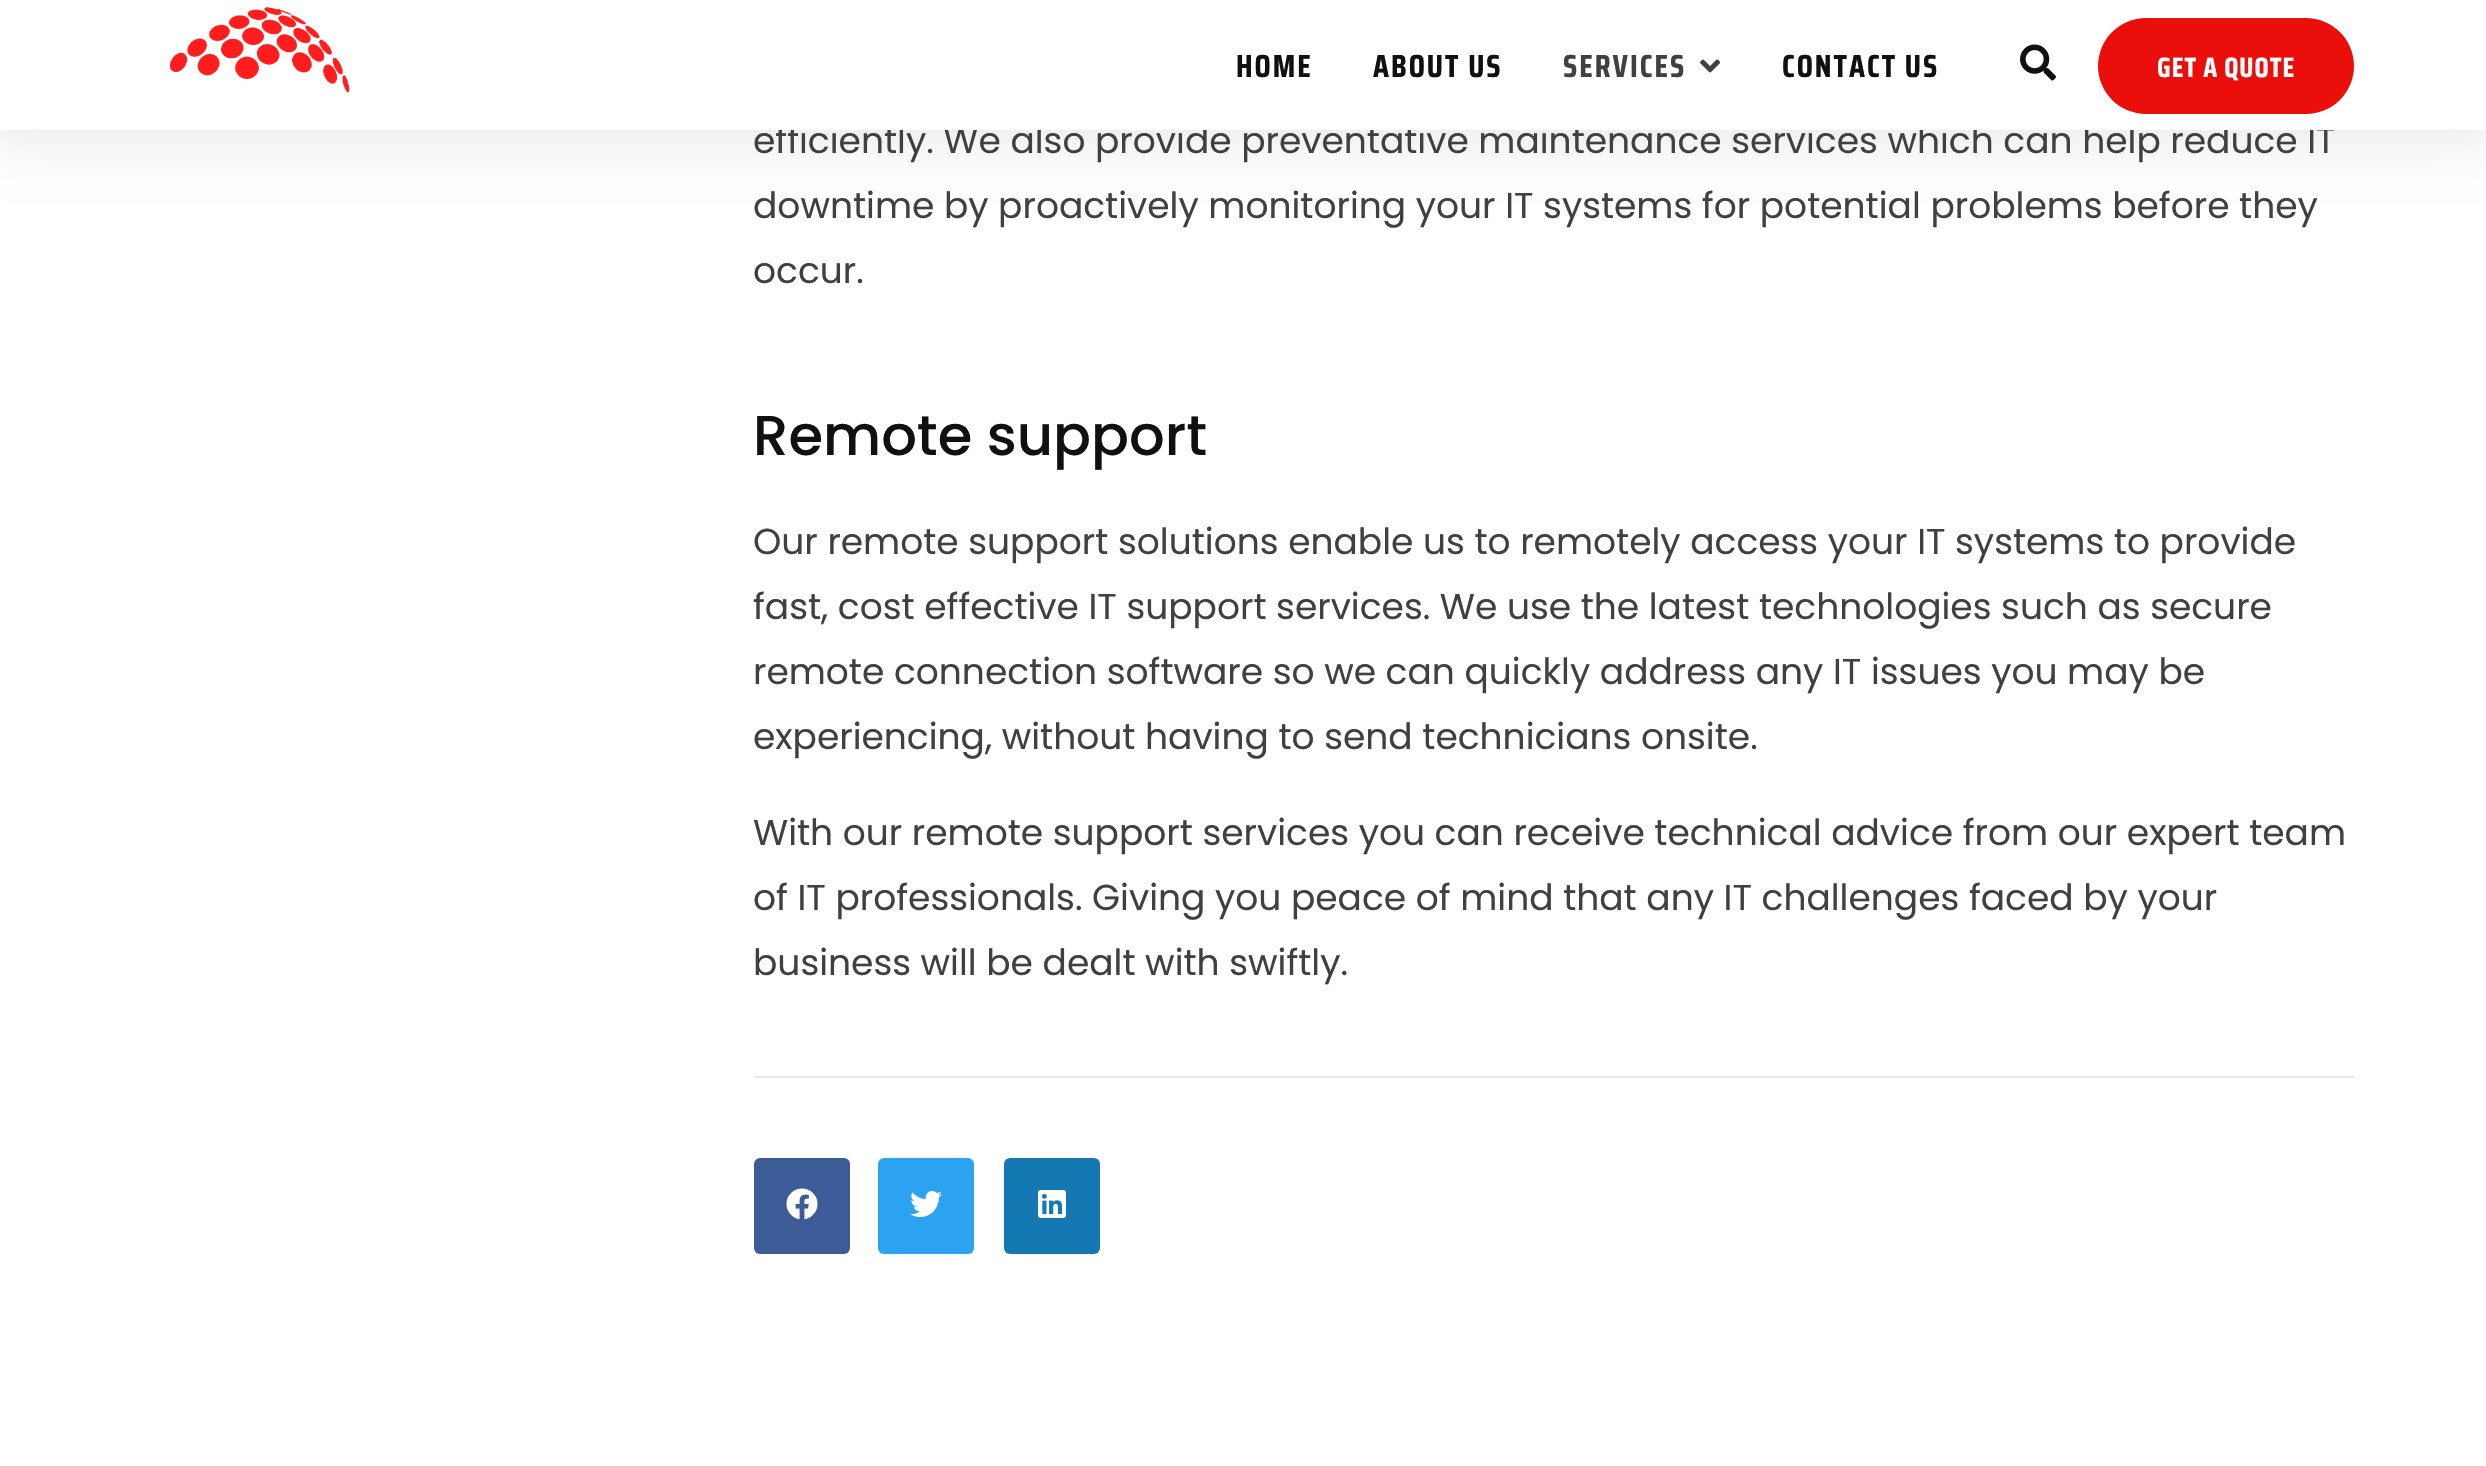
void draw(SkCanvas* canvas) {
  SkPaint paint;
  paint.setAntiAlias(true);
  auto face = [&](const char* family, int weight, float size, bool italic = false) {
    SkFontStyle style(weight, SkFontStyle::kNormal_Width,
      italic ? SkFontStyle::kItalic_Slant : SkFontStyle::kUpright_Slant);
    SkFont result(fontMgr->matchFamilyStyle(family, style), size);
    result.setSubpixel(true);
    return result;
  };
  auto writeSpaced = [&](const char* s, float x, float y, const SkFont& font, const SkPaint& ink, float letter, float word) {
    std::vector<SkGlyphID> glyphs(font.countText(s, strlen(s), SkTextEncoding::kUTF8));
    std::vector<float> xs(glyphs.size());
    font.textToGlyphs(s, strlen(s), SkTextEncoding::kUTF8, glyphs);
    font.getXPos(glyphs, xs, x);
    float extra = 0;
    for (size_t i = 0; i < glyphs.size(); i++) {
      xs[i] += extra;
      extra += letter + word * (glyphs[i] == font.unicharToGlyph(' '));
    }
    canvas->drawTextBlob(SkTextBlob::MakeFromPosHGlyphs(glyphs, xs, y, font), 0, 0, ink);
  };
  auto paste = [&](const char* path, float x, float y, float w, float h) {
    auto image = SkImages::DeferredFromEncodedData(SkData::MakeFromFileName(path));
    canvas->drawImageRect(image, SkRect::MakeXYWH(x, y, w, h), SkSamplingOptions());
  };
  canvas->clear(0xffffffff);
  paint.setColor(0x17000000);
  paint.setMaskFilter(SkMaskFilter::MakeBlur(kNormal_SkBlurStyle, 27));
  canvas->drawRect(SkRect::MakeXYWH(-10, -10, 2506, 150), paint);
  paint.setMaskFilter(nullptr);
  paint.setColor(0xffe8e8e8);
  canvas->drawRect(SkRect::MakeXYWH(754, 1076, 1600, 2), paint);
  paint.setColor(0xff3d5b96);
  canvas->drawRoundRect(SkRect::MakeXYWH(754, 1158, 96, 96), 6, 6, paint);
  paste("img/4.png", 786, 1188, 32, 32);
  paint.setColor(0xff2ca3f0);
  canvas->drawRoundRect(SkRect::MakeXYWH(878, 1158, 96, 96), 6, 6, paint);
  paste("img/5.png", 910, 1191, 32, 26);
  paint.setColor(0xff1479b3);
  canvas->drawRoundRect(SkRect::MakeXYWH(1004, 1158, 96, 96), 6, 6, paint);
  paste("img/6.png", 1038, 1190, 28, 28);
  auto f0 = face("Poppins", 400, 36);
  paint.setColor(0xff404040);
  canvas->drawString("efficiently. We also provide preventative maintenance services which can help reduce IT", 753, 153, f0, paint);
  paint.setColor(0xffffffff);
  canvas->drawRect(SkRect::MakeXYWH(0, 0, 2486, 130), paint);
  auto f1 = face("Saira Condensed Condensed", 700, 32);
  paint.setColor(0xff101010);
  writeSpaced("CONTACT US", 1782, 77, f1, paint, 2, 0);
  paste("img/2.png", 1700, 59, 20, 14);
  paint.setColor(0xff404040);
  writeSpaced("SERVICES", 1563, 77, f1, paint, 2, 0);
  paint.setColor(0xff101010);
  writeSpaced("ABOUT US", 1373, 77, f1, paint, 2, 0);
  writeSpaced("HOME", 1236, 77, f1, paint, 2, 0);
  paste("img/3.png", 2020, 44, 36, 37);
  paint.setColor(0xffea0f0a);
  canvas->drawRoundRect(SkRect::MakeXYWH(2098, 18, 256, 96), 48, 48, paint);
  auto f2 = face("Saira Condensed Condensed", 700, 28);
  paint.setColor(0xffffffff);
  writeSpaced("GET A QUOTE", 2157, 77, f2, paint, 1, 0);
  paste("img/1.png", 170, 7, 180, 86);
  paint.setColor(0xff404040);
  canvas->drawString("downtime by proactively monitoring your IT systems for potential problems before they", 753, 218, f0, paint);
  canvas->drawString("occur.", 753, 283, f0, paint);
  auto f3 = face("Poppins", 500, 56);
  paint.setColor(0xff101010);
  canvas->drawString("Remote support", 753, 455, f3, paint);
  paint.setColor(0xff404040);
  {
    const struct { const char* s; float x, y; } items[] = {
      {"Our remote support solutions enable us to remotely access your IT systems to provide", 753, 554},
      {"fast, cost effective IT support services. We use the latest technologies such as secure", 753, 619},
      {"remote connection software so we can quickly address any IT issues you may be", 753, 684},
      {"experiencing, without having to send technicians onsite.", 753, 749},
      {"With our remote support services you can receive technical advice from our expert team", 753, 845},
      {"of IT professionals. Giving you peace of mind that any IT challenges faced by your", 753, 910},
      {"business will be dealt with swiftly.", 753, 975},
    };
    for (auto [s, x, y] : items) {
      canvas->drawString(s, x, y, f0, paint);
    }
  }
}
